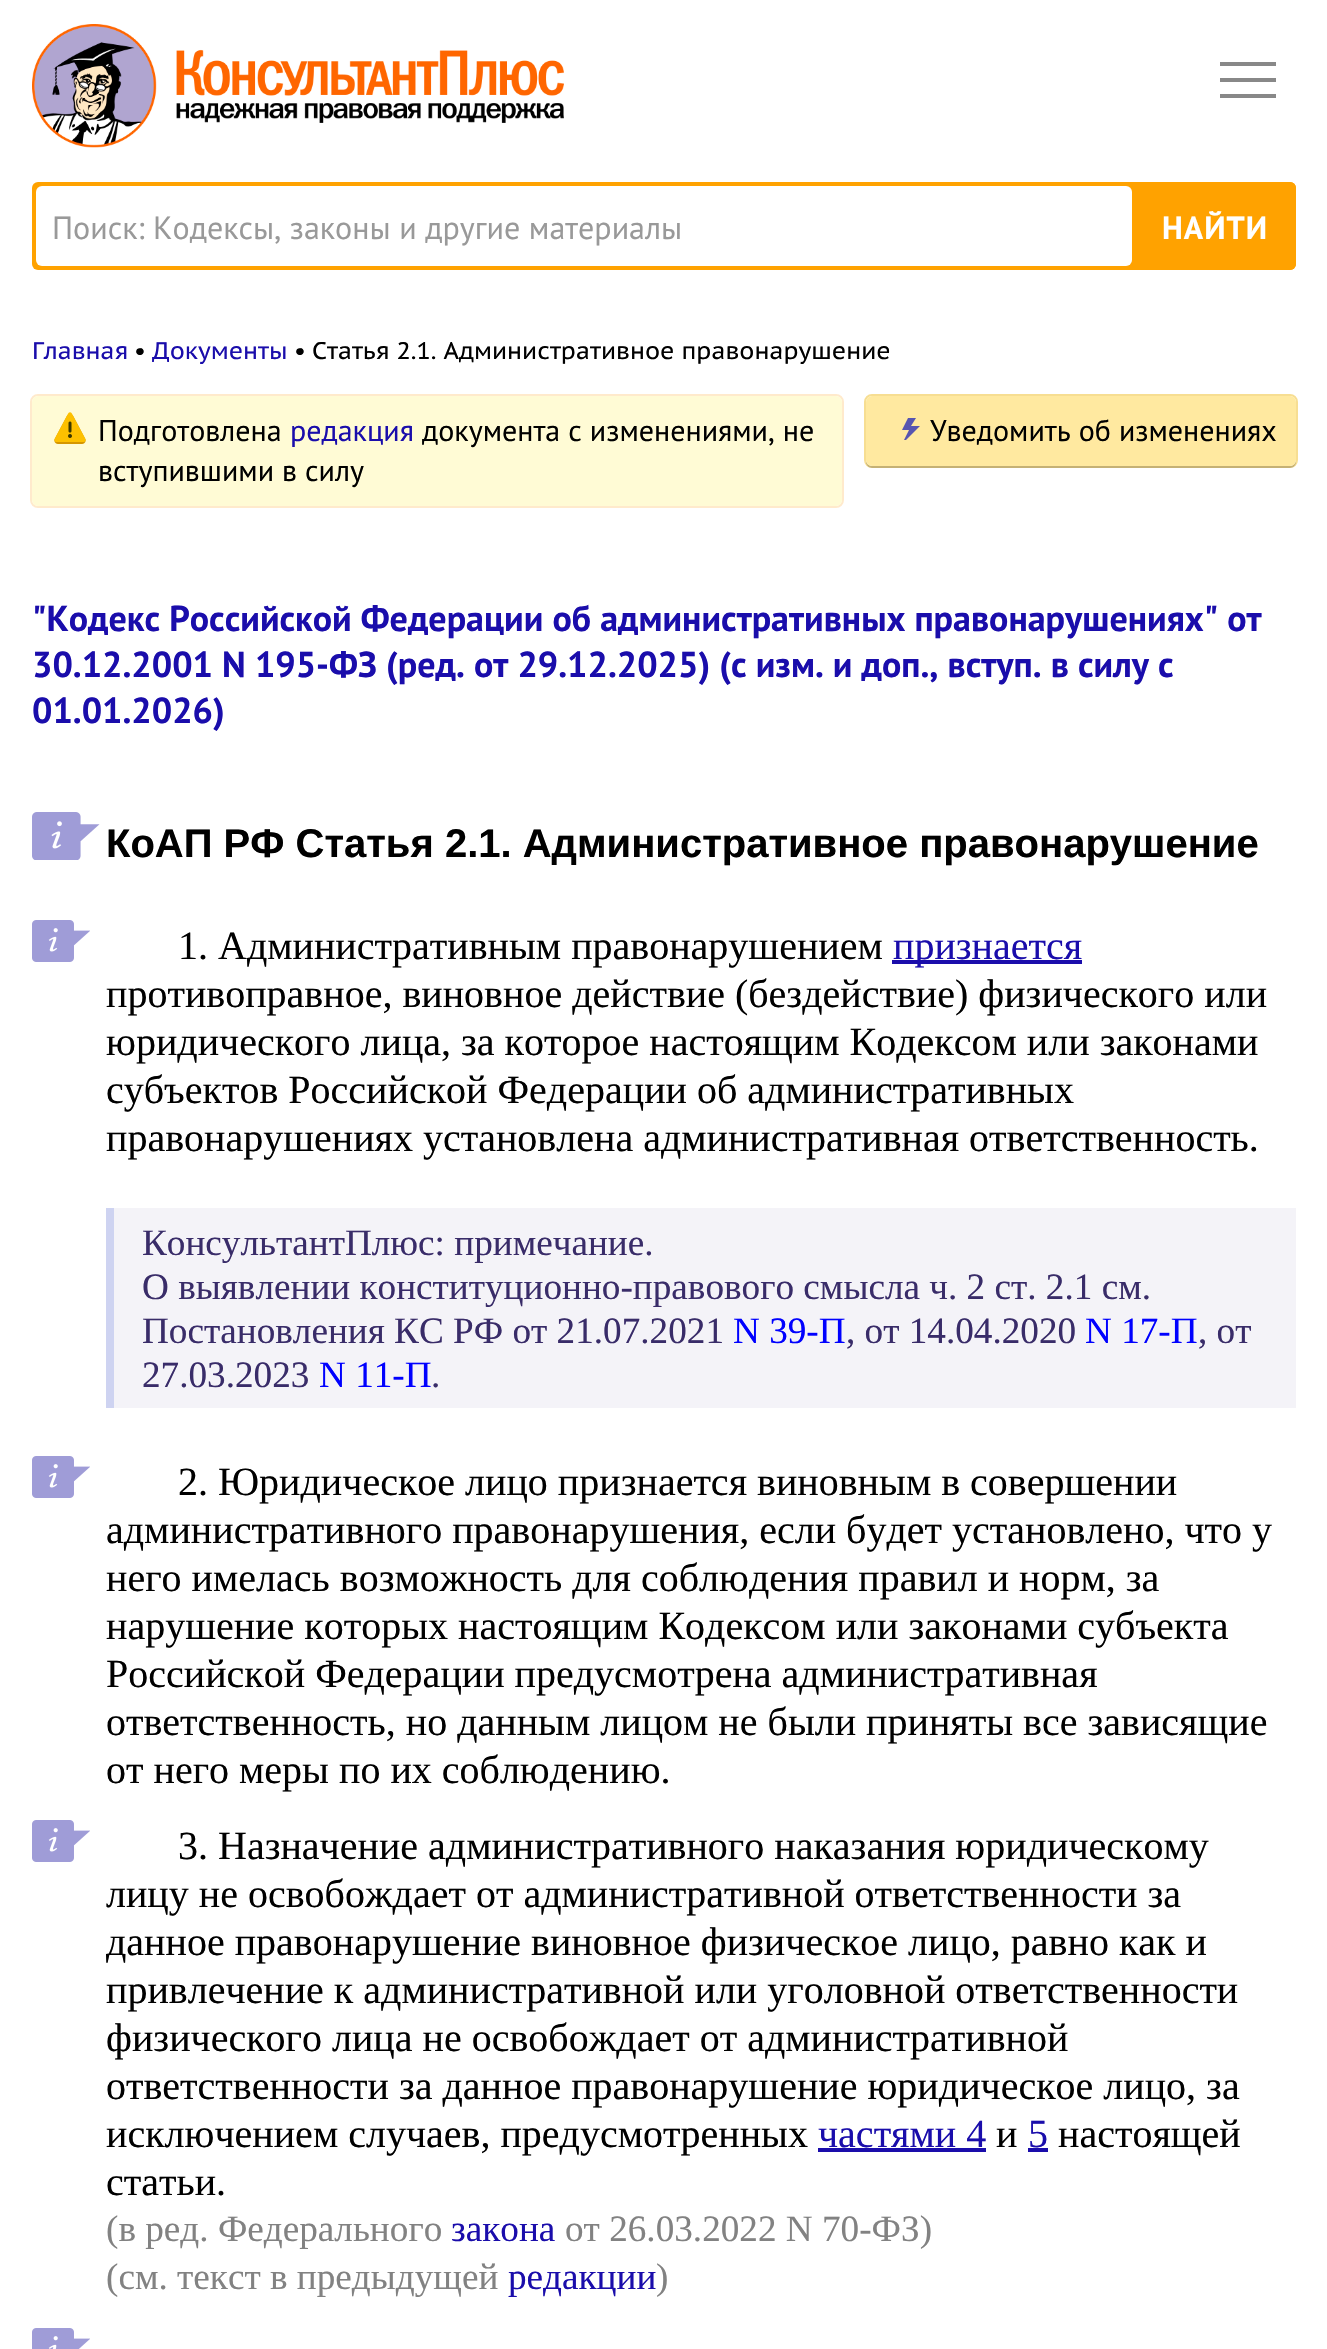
void draw(SkCanvas* canvas) {
  SkPaint paint;
  paint.setAntiAlias(true);
  auto face = [&](const char* family, int weight, float size, bool italic = false) {
    SkFontStyle style(weight, SkFontStyle::kNormal_Width,
      italic ? SkFontStyle::kItalic_Slant : SkFontStyle::kUpright_Slant);
    SkFont result(fontMgr->matchFamilyStyle(family, style), size);
    result.setSubpixel(true);
    return result;
  };
  auto writeSpaced = [&](const char* s, float x, float y, const SkFont& font, const SkPaint& ink, float letter, float word) {
    std::vector<SkGlyphID> glyphs(font.countText(s, strlen(s), SkTextEncoding::kUTF8));
    std::vector<float> xs(glyphs.size());
    font.textToGlyphs(s, strlen(s), SkTextEncoding::kUTF8, glyphs);
    font.getXPos(glyphs, xs, x);
    float extra = 0;
    for (size_t i = 0; i < glyphs.size(); i++) {
      xs[i] += extra;
      extra += letter + word * (glyphs[i] == font.unicharToGlyph(' '));
    }
    canvas->drawTextBlob(SkTextBlob::MakeFromPosHGlyphs(glyphs, xs, y, font), 0, 0, ink);
  };
  auto paste = [&](const char* path, float x, float y, float w, float h) {
    auto image = SkImages::DeferredFromEncodedData(SkData::MakeFromFileName(path));
    canvas->drawImageRect(image, SkRect::MakeXYWH(x, y, w, h), SkSamplingOptions());
  };
  auto shape = [&](const char* data, bool evenOdd = false) {
    SkPath result = *SkParsePath::FromSVGString(data);
    if (evenOdd) result.setFillType(SkPathFillType::kEvenOdd);
    return result;
  };
  canvas->clear(0xffffffff);
  paste("img/1.png", 32, 24, 532, 124);
  paste("img/2.png", 1220, 62, 56, 36);
  paint.setColor(0xffffa200);
  canvas->drawRoundRect(SkRect::MakeXYWH(32, 182, 1264, 88), 6, 6, paint);
  paint.setColor(0xffffffff);
  canvas->drawRoundRect(SkRect::MakeXYWH(36, 186, 1096, 80), 6, 6, paint);
  paint.setColor(0xffffa200);
  canvas->drawRoundRect(SkRect::MakeXYWH(1132, 182, 164, 88), 6, 6, paint);
  paint.setStroke(true);
  paint.setStrokeWidth(2);
  paint.setColor(0xffffeacc);
  canvas->drawRoundRect(SkRect::MakeXYWH(31, 395, 812, 112), 7, 7, paint);
  paint.setStroke(false);
  paint.setColor(0xfffffbd5);
  canvas->drawRoundRect(SkRect::MakeXYWH(32, 396, 810, 110), 6, 6, paint);
  paste("img/3.png", 54, 412, 32, 32);
  paint.setStroke(true);
  paint.setColor(0xfff7de92);
  canvas->drawRoundRect(SkRect::MakeXYWH(865, 395, 432, 72), 7, 7, paint);
  paint.setStroke(false);
  paint.setColor(0x33000000);
  canvas->drawPath(shape("M866 460V462C866 465 869 468 872 468H1290C1293 468 1296 465 1296 462V460C1296 463 1293 466 1290 466H872C869 466 866 463 866 460Z"), paint);
  paint.setColor(0xffffe9a0);
  canvas->drawRoundRect(SkRect::MakeXYWH(866, 396, 430, 70), 6, 6, paint);
  paste("img/4.png", 902, 418, 18, 22);
  paste("img/5.png", 32, 812, 68, 48);
  paste("img/6.png", 32, 920, 58, 42);
  {
    const struct { float x, y, w, h; SkColor color; } items[] = {
      {892, 960, 190, 4, 0xff1a0dab},
      {114, 1208, 1182, 200, 0xfff4f3f8},
      {106, 1208, 8, 200, 0xffced3f1},
    };
    for (auto [x, y, w, h, color] : items) {
      paint.setColor(color);
      canvas->drawRect(SkRect::MakeXYWH(x, y, w, h), paint);
    }
  }
  paste("img/6.png", 32, 1456, 58, 42);
  paste("img/6.png", 32, 1820, 58, 42);
  paint.setColor(0xff1a0dab);
  canvas->drawRect(SkRect::MakeXYWH(818, 2148, 168, 4), paint);
  canvas->drawRect(SkRect::MakeXYWH(1028, 2148, 20, 4), paint);
  paste("img/7.png", 32, 2328, 58, 21);
  auto f0 = face("PT Sans", 400, 32);
  paint.setColor(0xff999999);
  canvas->drawString("Поиск: Кодексы, законы и другие материалы", 52, 239, f0, paint);
  auto f1 = face("PT Sans", 700, 32);
  paint.setColor(0xffffffff);
  writeSpaced("НАЙТИ", 1162, 239, f1, paint, 1, 0);
  auto f2 = face("PT Sans Caption", 400, 24);
  paint.setColor(0xff1a0dab);
  canvas->drawString("Главная", 32, 359, f2, paint);
  paint.setColor(0xff000000);
  canvas->drawString("•", 134, 359, f2, paint);
  paint.setColor(0xff1a0dab);
  canvas->drawString("Документы", 152, 359, f2, paint);
  paint.setColor(0xff000000);
  canvas->drawString("•", 294, 359, f2, paint);
  canvas->drawString("Статья 2.1. Административное правонарушение", 312, 359, f2, paint);
  auto f3 = face("PT Sans", 400, 30);
  canvas->drawString("Подготовлена", 98, 441, f3, paint);
  paint.setColor(0xff1a0dab);
  canvas->drawString("редакция", 290, 441, f3, paint);
  paint.setColor(0xff000000);
  {
    const struct { const char* s; float x, y; } items[] = {
      {"документа с изменениями, не", 422, 441},
      {"вступившими в силу", 98, 481},
      {"Уведомить об изменениях", 930, 441},
    };
    for (auto [s, x, y] : items) {
      canvas->drawString(s, x, y, f3, paint);
    }
  }
  auto f4 = face("PT Sans", 700, 36);
  paint.setColor(0xff1a0dab);
  {
    const struct { const char* s; float x, y; } items[] = {
      {"\"Кодекс Российской Федерации об административных правонарушениях\" от", 32, 631},
      {"30.12.2001 N 195-ФЗ (ред. от 29.12.2025) (с изм. и доп., вступ. в силу с", 32, 677},
      {"01.01.2026)", 32, 723},
    };
    for (auto [s, x, y] : items) {
      canvas->drawString(s, x, y, f4, paint);
    }
  }
  auto f5 = face("Liberation Sans", 700, 40);
  paint.setColor(0xff000000);
  canvas->drawString("КоАП РФ Статья 2.1. Административное правонарушение", 106, 857, f5, paint);
  auto f6 = face("Liberation Serif", 400, 40);
  canvas->drawString("1. Административным правонарушением", 178, 959, f6, paint);
  paint.setColor(0xff1a0dab);
  canvas->drawString("признается", 893, 959, f6, paint);
  paint.setColor(0xff000000);
  {
    const struct { const char* s; float x, y; } items[] = {
      {"противоправное, виновное действие (бездействие) физического или", 106, 1007},
      {"юридического лица, за которое настоящим Кодексом или законами", 106, 1055},
      {"субъектов Российской Федерации об административных", 106, 1103},
      {"правонарушениях установлена административная ответственность.", 106, 1151},
    };
    for (auto [s, x, y] : items) {
      canvas->drawString(s, x, y, f6, paint);
    }
  }
  auto f7 = face("Liberation Serif", 400, 37.2f);
  paint.setColor(0xff392c69);
  {
    const struct { const char* s; float x, y; } items[] = {
      {"КонсультантПлюс: примечание.", 142, 1255},
      {"О выявлении конституционно-правового смысла ч. 2 ст. 2.1 см.", 142, 1299},
      {"Постановления КС РФ от 21.07.2021", 142, 1343},
    };
    for (auto [s, x, y] : items) {
      canvas->drawString(s, x, y, f7, paint);
    }
  }
  paint.setColor(0xff0000ff);
  canvas->drawString("N 39-П", 733, 1343, f7, paint);
  paint.setColor(0xff392c69);
  canvas->drawString(", от 14.04.2020", 846, 1343, f7, paint);
  paint.setColor(0xff0000ff);
  canvas->drawString("N 17-П", 1085, 1343, f7, paint);
  paint.setColor(0xff392c69);
  canvas->drawString(", от", 1198, 1343, f7, paint);
  canvas->drawString("27.03.2023", 142, 1387, f7, paint);
  paint.setColor(0xff0000ff);
  canvas->drawString("N 11-П", 319, 1387, f7, paint);
  paint.setColor(0xff392c69);
  canvas->drawString(".", 431, 1387, f7, paint);
  paint.setColor(0xff000000);
  {
    const struct { const char* s; float x, y; } items[] = {
      {"2. Юридическое лицо признается виновным в совершении", 178, 1495},
      {"административного правонарушения, если будет установлено, что у", 106, 1543},
      {"него имелась возможность для соблюдения правил и норм, за", 106, 1591},
      {"нарушение которых настоящим Кодексом или законами субъекта", 106, 1639},
      {"Российской Федерации предусмотрена административная", 106, 1687},
      {"ответственность, но данным лицом не были приняты все зависящие", 106, 1735},
      {"от него меры по их соблюдению.", 106, 1783},
      {"3. Назначение административного наказания юридическому", 178, 1859},
      {"лицу не освобождает от административной ответственности за", 106, 1907},
      {"данное правонарушение виновное физическое лицо, равно как и", 106, 1955},
      {"привлечение к административной или уголовной ответственности", 106, 2003},
      {"физического лица не освобождает от административной", 106, 2051},
      {"ответственности за данное правонарушение юридическое лицо, за", 106, 2099},
      {"исключением случаев, предусмотренных", 106, 2147},
    };
    for (auto [s, x, y] : items) {
      canvas->drawString(s, x, y, f6, paint);
    }
  }
  paint.setColor(0xff1a0dab);
  canvas->drawString("частями 4", 818, 2147, f6, paint);
  paint.setColor(0xff000000);
  canvas->drawString("и", 996, 2147, f6, paint);
  paint.setColor(0xff1a0dab);
  canvas->drawString("5", 1028, 2147, f6, paint);
  paint.setColor(0xff000000);
  canvas->drawString("настоящей", 1058, 2147, f6, paint);
  canvas->drawString("статьи.", 106, 2195, f6, paint);
  paint.setColor(0xff828282);
  canvas->drawString("(в ред. Федерального", 106, 2241, f7, paint);
  paint.setColor(0xff1a0dab);
  canvas->drawString("закона", 451, 2241, f7, paint);
  paint.setColor(0xff828282);
  canvas->drawString("от 26.03.2022 N 70-ФЗ)", 565, 2241, f7, paint);
  canvas->drawString("(см. текст в предыдущей", 106, 2289, f7, paint);
  paint.setColor(0xff1a0dab);
  canvas->drawString("редакции", 508, 2289, f7, paint);
  paint.setColor(0xff828282);
  canvas->drawString(")", 656, 2289, f7, paint);
}
